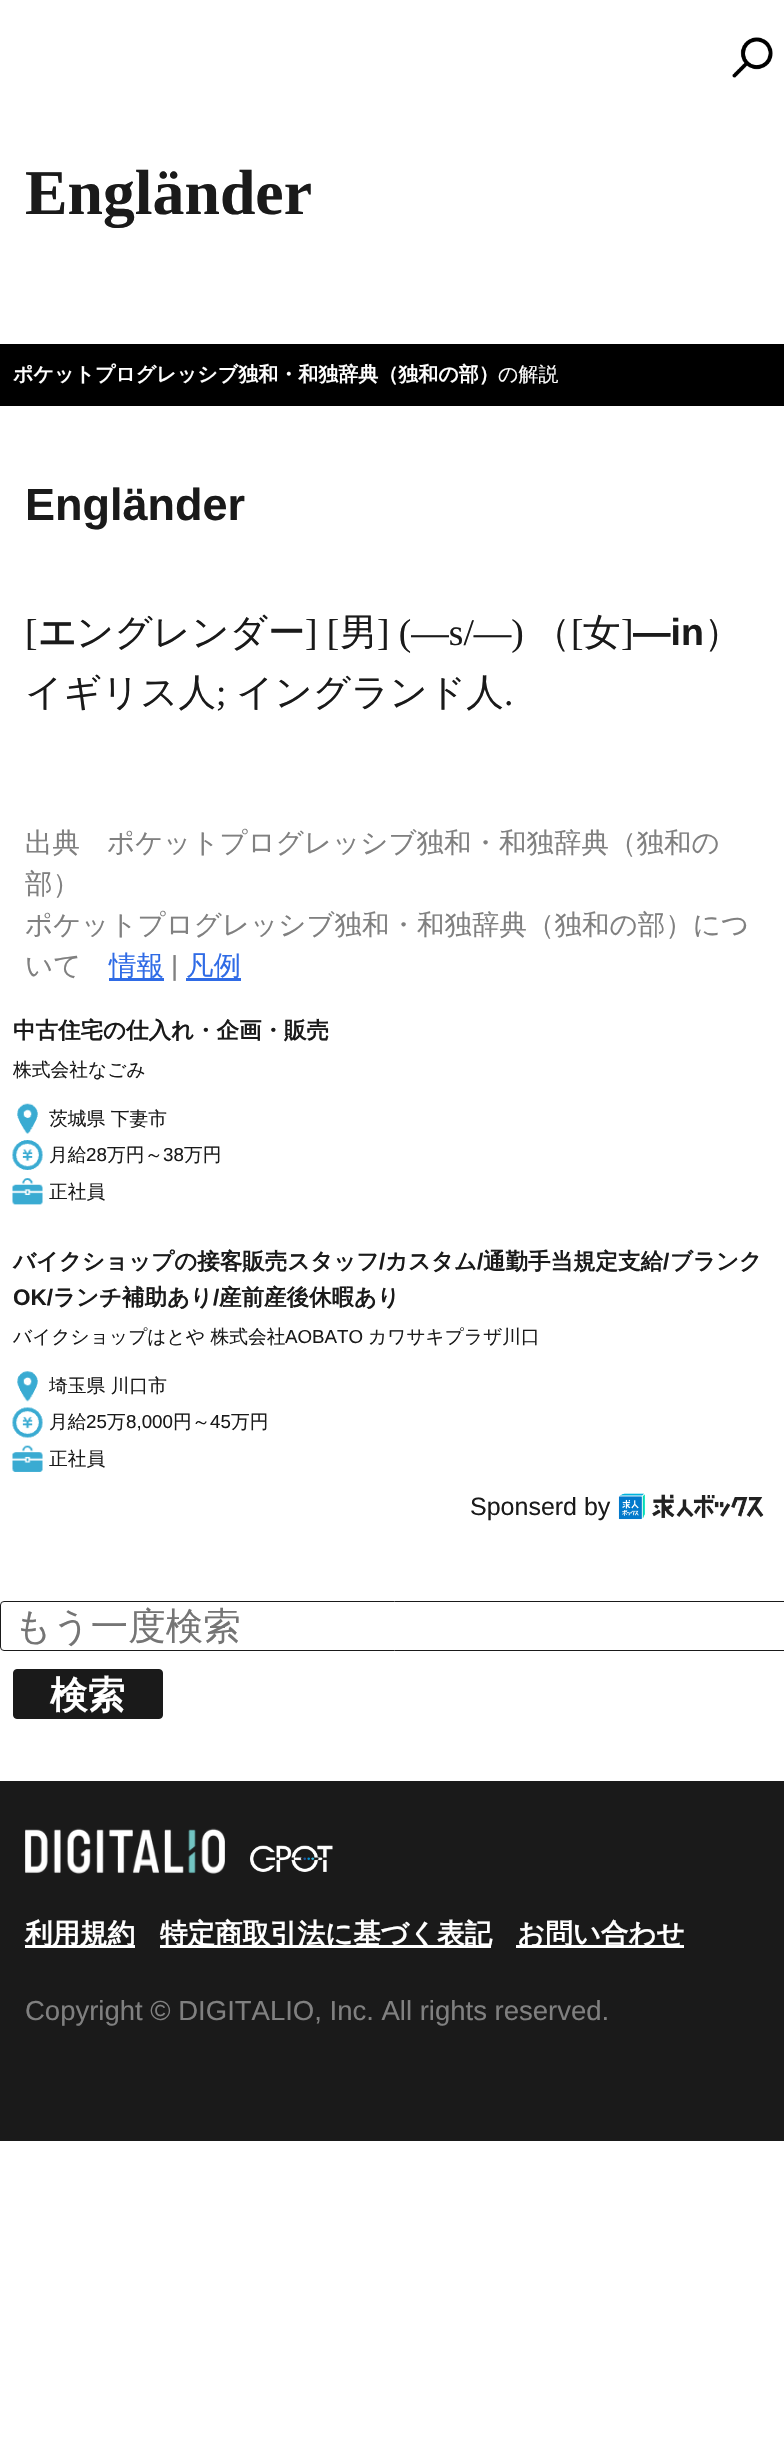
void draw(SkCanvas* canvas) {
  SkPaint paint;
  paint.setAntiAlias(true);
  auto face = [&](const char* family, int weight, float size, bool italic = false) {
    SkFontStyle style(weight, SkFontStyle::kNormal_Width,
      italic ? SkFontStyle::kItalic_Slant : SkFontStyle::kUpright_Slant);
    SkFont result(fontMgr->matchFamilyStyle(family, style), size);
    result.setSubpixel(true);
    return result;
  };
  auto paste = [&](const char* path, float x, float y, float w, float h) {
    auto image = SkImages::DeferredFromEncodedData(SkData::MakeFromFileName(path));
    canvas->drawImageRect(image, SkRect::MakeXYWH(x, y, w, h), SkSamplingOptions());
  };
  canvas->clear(0xffffffff);
  paste("img/1.png", 732, 37, 41, 41);
  {
    const struct { float x, y, w, h; SkColor color; } items[] = {
      {0, 344, 784, 62, 0xff000000},
      {109, 978, 55, 3, 0xff2f6be6},
      {186, 978, 55, 3, 0xff2f6be6},
    };
    for (auto [x, y, w, h, color] : items) {
      paint.setColor(color);
      canvas->drawRect(SkRect::MakeXYWH(x, y, w, h), paint);
    }
  }
  paste("img/2.png", 17, 1103, 21, 31);
  paste("img/3.png", 12, 1140, 31, 30);
  paste("img/4.png", 12, 1178, 31, 27);
  paste("img/5.png", 17, 1371, 21, 31);
  paste("img/6.png", 12, 1407, 31, 31);
  paste("img/7.png", 12, 1445, 31, 27);
  paste("img/8.png", 618, 1493, 146, 27);
  paint.setStroke(true);
  paint.setStrokeWidth(1);
  paint.setColor(0xff1a1a1a);
  canvas->drawRoundRect(SkRect::MakeXYWH(0.5f, 1601.5f, 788, 49), 3.5f, 3.5f, paint);
  paint.setStroke(false);
  canvas->drawRoundRect(SkRect::MakeXYWH(13.5f, 1669.5f, 149, 49), 3.5f, 3.5f, paint);
  paint.setStroke(true);
  canvas->drawRoundRect(SkRect::MakeXYWH(13.5f, 1669.5f, 149, 49), 3.5f, 3.5f, paint);
  paint.setStroke(false);
  canvas->drawRect(SkRect::MakeXYWH(0, 1781, 784, 360), paint);
  paste("img/9.png", 25, 1828, 200, 46);
  paste("img/10.png", 250, 1845, 83, 27);
  {
    const struct { float x, y, w, h; SkColor color; } items[] = {
      {25, 1945, 110, 3, 0xffffffff},
      {160, 1945, 331, 3, 0xffffffff},
      {516, 1945, 168, 3, 0xffffffff},
    };
    for (auto [x, y, w, h, color] : items) {
      paint.setColor(color);
      canvas->drawRect(SkRect::MakeXYWH(x, y, w, h), paint);
    }
  }
  auto f0 = face("Liberation Serif", 700, 63.75f);
  paint.setColor(0xff1a1a1a);
  canvas->drawString("Engländer", 25, 214, f0, paint);
  auto f1 = face("WenQuanYi Zen Hei", 700, 20);
  paint.setColor(0xffffffff);
  canvas->drawString("ポケットプログレッシブ独和・和独辞典（独和の部）", 13, 381, f1, paint);
  auto f2 = face("WenQuanYi Zen Hei", 500, 20);
  canvas->drawString("の解説", 498, 381, f2, paint);
  auto f3 = face("Liberation Sans", 700, 45);
  paint.setColor(0xff1a1a1a);
  canvas->drawString("Engländer", 25, 520, f3, paint);
  auto f4 = face("Liberation Serif", 400, 37.5f);
  canvas->drawString("[", 25, 645, f4, paint);
  auto f5 = face("WenQuanYi Zen Hei", 700, 37.5f);
  canvas->drawString("エ", 38, 645, f5, paint);
  auto f6 = face("WenQuanYi Zen Hei", 500, 37.5f);
  canvas->drawString("ングレンダー", 76, 645, f6, paint);
  canvas->drawString("] [", 305, 645, f4, paint);
  canvas->drawString("男", 340, 645, f6, paint);
  canvas->drawString("] (―s/―)", 377, 645, f4, paint);
  canvas->drawString("（", 533, 645, f6, paint);
  canvas->drawString("[", 571, 645, f4, paint);
  canvas->drawString("女", 583, 645, f6, paint);
  canvas->drawString("]", 621, 645, f4, paint);
  auto f7 = face("Liberation Sans", 700, 37.5f);
  canvas->drawString("―in", 633, 645, f7, paint);
  canvas->drawString("）", 704, 645, f6, paint);
  canvas->drawString("イギリス人", 25, 705, f6, paint);
  canvas->drawString(";", 216, 705, f4, paint);
  canvas->drawString("イングランド人", 236, 705, f6, paint);
  canvas->drawString(".", 504, 705, f4, paint);
  auto f8 = face("WenQuanYi Zen Hei", 500, 27.5f);
  paint.setColor(0xff808080);
  {
    const struct { const char* s; float x, y; } items[] = {
      {"出典", 25, 852},
      {"ポケットプログレッシブ独和・和独辞典（独和の", 107, 852},
      {"部）", 25, 893},
      {"ポケットプログレッシブ独和・和独辞典（独和の部）につ", 25, 934},
      {"いて", 25, 975},
    };
    for (auto [s, x, y] : items) {
      canvas->drawString(s, x, y, f8, paint);
    }
  }
  paint.setColor(0xff2f6be6);
  canvas->drawString("情報", 109, 975, f8, paint);
  auto f9 = face("Liberation Sans", 400, 27.5f);
  paint.setColor(0xff808080);
  canvas->drawString("|", 171, 975, f9, paint);
  paint.setColor(0xff2f6be6);
  canvas->drawString("凡例", 186, 975, f8, paint);
  auto f10 = face("WenQuanYi Zen Hei", 700, 22.5f);
  paint.setColor(0xff1a1a1a);
  canvas->drawString("中古住宅の仕入れ・企画・販売", 13, 1038, f10, paint);
  auto f11 = face("WenQuanYi Zen Hei", 500, 18.75f);
  {
    const struct { const char* s; float x, y; } items[] = {
      {"株式会社なごみ", 13, 1076},
      {"茨城県 下妻市", 49, 1125},
      {"月給", 49, 1161},
    };
    for (auto [s, x, y] : items) {
      canvas->drawString(s, x, y, f11, paint);
    }
  }
  auto f12 = face("Liberation Sans", 400, 18.75f);
  canvas->drawString("28", 86, 1161, f12, paint);
  canvas->drawString("万円～", 107, 1161, f11, paint);
  canvas->drawString("38", 163, 1161, f12, paint);
  canvas->drawString("万円", 184, 1161, f11, paint);
  canvas->drawString("正社員", 49, 1198, f11, paint);
  canvas->drawString("バイクショップの接客販売スタッフ", 13, 1269, f10, paint);
  auto f13 = face("Liberation Sans", 700, 22.5f);
  canvas->drawString("/", 379, 1269, f13, paint);
  canvas->drawString("カスタム", 385, 1269, f10, paint);
  canvas->drawString("/", 477, 1269, f13, paint);
  canvas->drawString("通勤手当規定支給", 483, 1269, f10, paint);
  canvas->drawString("/", 663, 1269, f13, paint);
  canvas->drawString("ブランク", 670, 1269, f10, paint);
  canvas->drawString("OK/", 13, 1305, f13, paint);
  canvas->drawString("ランチ補助あり", 53, 1305, f10, paint);
  canvas->drawString("/", 213, 1305, f13, paint);
  canvas->drawString("産前産後休暇あり", 219, 1305, f10, paint);
  canvas->drawString("バイクショップはとや 株式会社", 13, 1343, f11, paint);
  canvas->drawString("AOBATO", 285, 1343, f12, paint);
  {
    const struct { const char* s; float x, y; } items[] = {
      {"カワサキプラザ川口", 368, 1343},
      {"埼玉県 川口市", 49, 1392},
      {"月給", 49, 1428},
    };
    for (auto [s, x, y] : items) {
      canvas->drawString(s, x, y, f11, paint);
    }
  }
  canvas->drawString("25", 86, 1428, f12, paint);
  canvas->drawString("万", 107, 1428, f11, paint);
  canvas->drawString("8,000", 126, 1428, f12, paint);
  canvas->drawString("円～", 173, 1428, f11, paint);
  canvas->drawString("45", 210, 1428, f12, paint);
  canvas->drawString("万円", 231, 1428, f11, paint);
  canvas->drawString("正社員", 49, 1465, f11, paint);
  auto f14 = face("Liberation Sans", 400, 25);
  canvas->drawString("Sponserd by", 470, 1515, f14, paint);
  paint.setColor(0xff757575);
  canvas->drawString("もう一度検索", 14, 1639, f6, paint);
  paint.setColor(0xffffffff);
  canvas->drawString("検索", 50, 1708, f5, paint);
  auto f15 = face("WenQuanYi Zen Hei", 700, 27.5f);
  {
    const struct { const char* s; float x, y; } items[] = {
      {"利用規約", 25, 1943},
      {"特定商取引法に基づく表記", 160, 1943},
      {"お問い合わせ", 517, 1943},
    };
    for (auto [s, x, y] : items) {
      canvas->drawString(s, x, y, f15, paint);
    }
  }
  paint.setColor(0xff808080);
  canvas->drawString("Copyright © DIGITALIO, Inc. All rights reserved.", 25, 2020, f9, paint);
}
